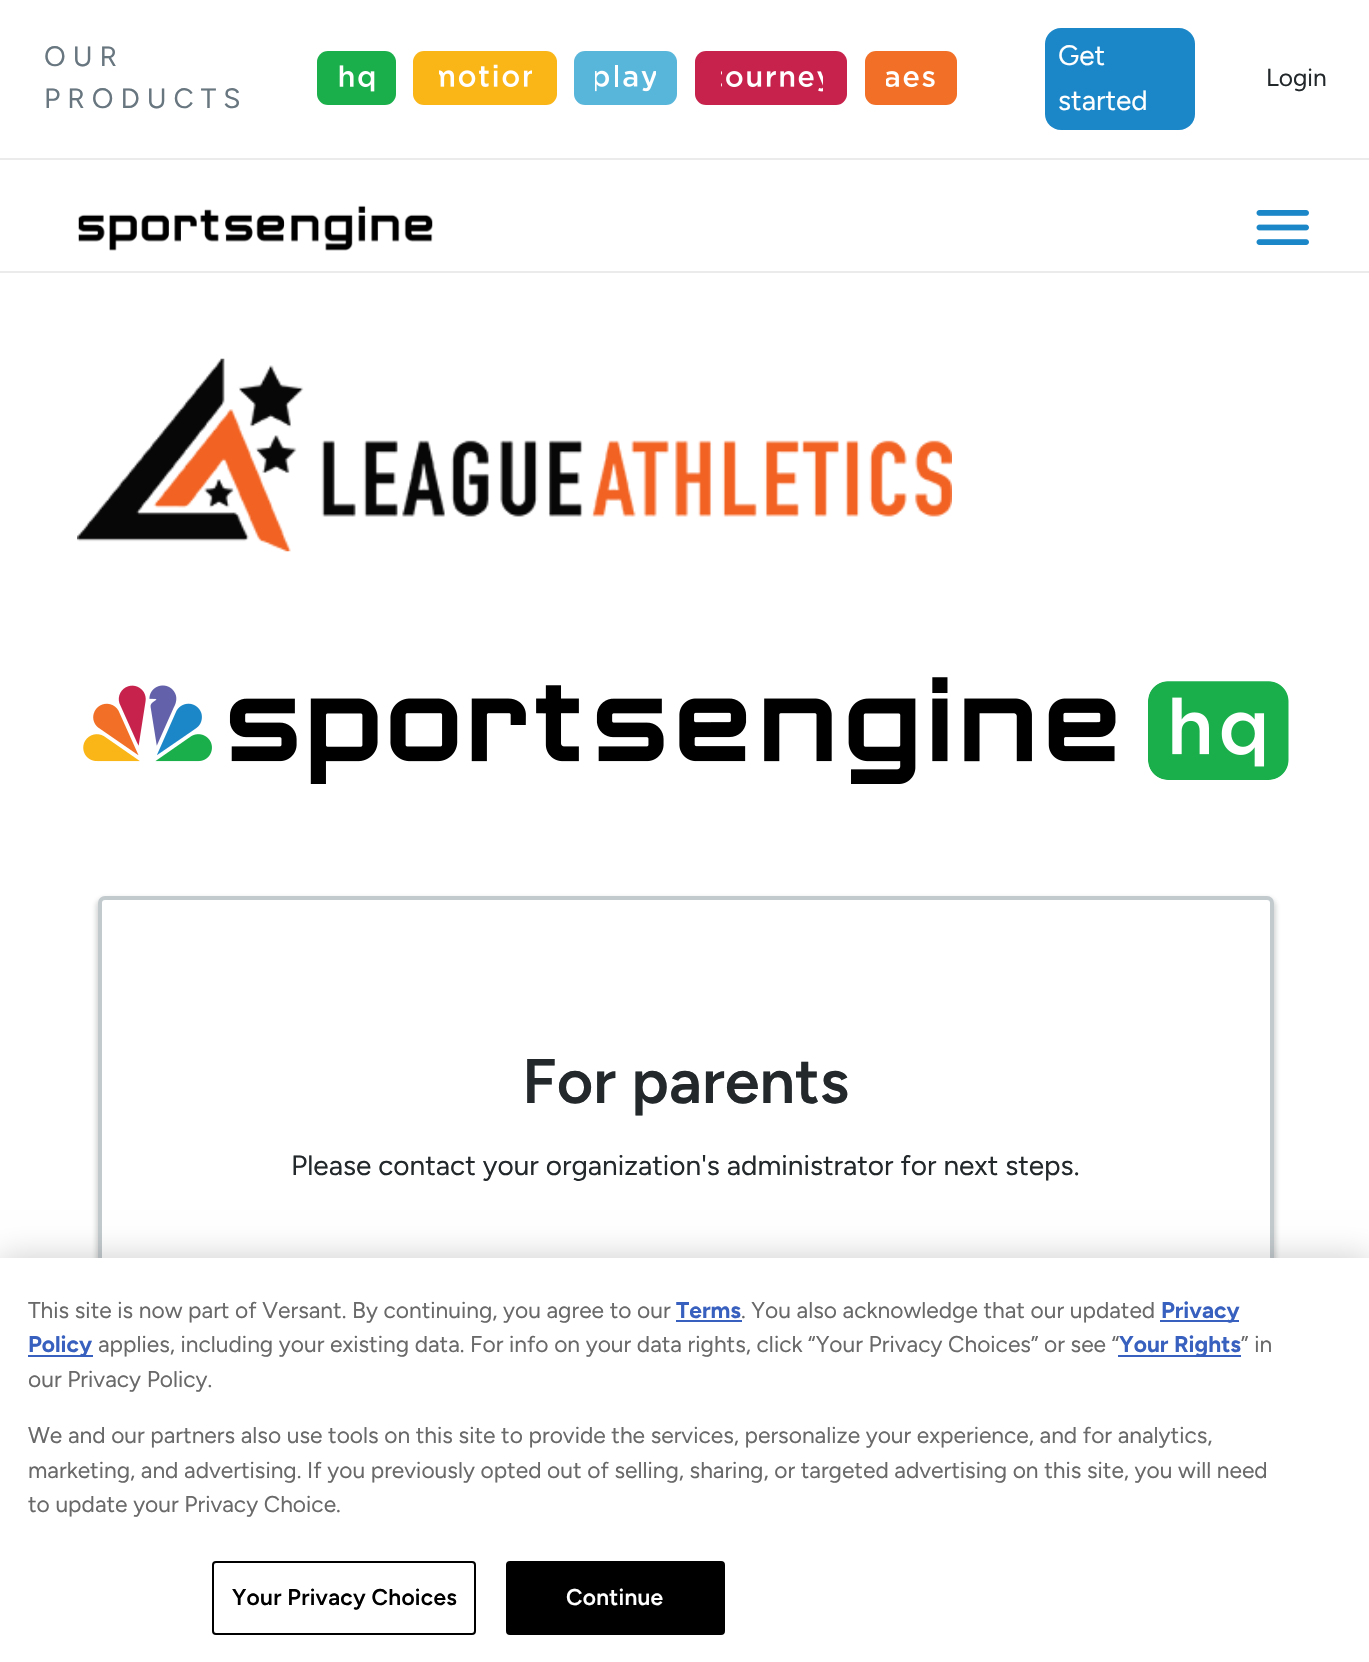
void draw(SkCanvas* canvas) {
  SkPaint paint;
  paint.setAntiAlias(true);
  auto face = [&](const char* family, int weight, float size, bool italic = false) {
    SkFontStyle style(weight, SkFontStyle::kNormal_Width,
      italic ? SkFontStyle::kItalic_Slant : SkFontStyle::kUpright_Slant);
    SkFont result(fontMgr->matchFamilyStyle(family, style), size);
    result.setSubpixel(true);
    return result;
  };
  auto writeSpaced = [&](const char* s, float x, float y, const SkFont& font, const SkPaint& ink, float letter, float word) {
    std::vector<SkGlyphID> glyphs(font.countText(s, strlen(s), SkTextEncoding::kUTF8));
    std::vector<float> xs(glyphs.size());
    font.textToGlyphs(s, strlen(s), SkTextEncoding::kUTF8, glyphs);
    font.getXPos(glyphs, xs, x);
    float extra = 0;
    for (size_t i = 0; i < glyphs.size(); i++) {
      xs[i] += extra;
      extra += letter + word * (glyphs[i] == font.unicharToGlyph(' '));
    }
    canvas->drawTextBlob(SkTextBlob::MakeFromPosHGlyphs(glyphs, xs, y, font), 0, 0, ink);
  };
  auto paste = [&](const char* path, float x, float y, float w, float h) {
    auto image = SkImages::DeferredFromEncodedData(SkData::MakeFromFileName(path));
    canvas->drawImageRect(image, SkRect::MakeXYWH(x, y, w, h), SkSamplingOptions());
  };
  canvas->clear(0xffffffff);
  paint.setColor(0xffebebeb);
  canvas->drawRect(SkRect::MakeXYWH(0, 158, 1369, 2), paint);
  paint.setColor(0xff1aaf4b);
  canvas->drawRoundRect(SkRect::MakeXYWH(317, 51, 79, 54), 11, 11, paint);
  paste("img/1.png", 339, 65, 36, 27);
  paint.setColor(0xfffab516);
  canvas->drawRoundRect(SkRect::MakeXYWH(413, 51, 144, 54), 11, 11, paint);
  paste("img/2.png", 439, 64, 93, 23);
  paint.setColor(0xff58b6db);
  canvas->drawRoundRect(SkRect::MakeXYWH(574, 51, 103, 54), 11, 11, paint);
  paste("img/3.png", 595, 65, 61, 27);
  paint.setColor(0xffc7224c);
  canvas->drawRoundRect(SkRect::MakeXYWH(695, 51, 152, 54), 11, 11, paint);
  paste("img/4.png", 721, 71, 102, 21);
  paint.setColor(0xfff16f26);
  canvas->drawRoundRect(SkRect::MakeXYWH(865, 51, 92, 54), 11, 11, paint);
  paste("img/5.png", 886, 71, 49, 17);
  paint.setColor(0xff1b87c8);
  canvas->drawRoundRect(SkRect::MakeXYWH(1045, 28, 150, 102), 16, 16, paint);
  paint.setColor(0xffebebeb);
  canvas->drawRect(SkRect::MakeXYWH(0, 271, 1369, 2), paint);
  paste("img/6.png", 78, 205, 355, 46);
  paste("img/7.png", 1256, 210, 53, 35);
  paste("img/8.png", 77, 358, 875, 194);
  paste("img/9.png", 83, 677, 1206, 107);
  paint.setColor(0x3323282b);
  paint.setMaskFilter(SkMaskFilter::MakeBlur(kNormal_SkBlurStyle, 2.5f));
  canvas->drawRoundRect(SkRect::MakeXYWH(96, 898, 1180, 549), 9, 9, paint);
  paint.setMaskFilter(nullptr);
  paint.setColor(0xffffffff);
  canvas->drawRoundRect(SkRect::MakeXYWH(100, 898, 1172, 542), 5, 5, paint);
  paint.setStroke(true);
  paint.setStrokeWidth(4);
  paint.setColor(0xffc3cace);
  canvas->drawRoundRect(SkRect::MakeXYWH(100, 898, 1172, 542), 5, 5, paint);
  paint.setStroke(false);
  paint.setColor(0x33000000);
  paint.setMaskFilter(SkMaskFilter::MakeBlur(kNormal_SkBlurStyle, 16));
  canvas->drawRect(SkRect::MakeXYWH(0, 1258, 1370, 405), paint);
  paint.setMaskFilter(nullptr);
  {
    const struct { float x, y, w, h; SkColor color; } items[] = {
      {0, 1258, 1369, 404, 0xffffffff},
      {676, 1320, 66, 2, 0xff3860be},
      {1160, 1320, 79, 2, 0xff3860be},
      {28, 1355, 65, 2, 0xff3860be},
    };
    for (auto [x, y, w, h, color] : items) {
      paint.setColor(color);
      canvas->drawRect(SkRect::MakeXYWH(x, y, w, h), paint);
    }
  }
  paint.setStroke(true);
  paint.setStrokeWidth(2);
  paint.setColor(0xff000000);
  canvas->drawRoundRect(SkRect::MakeXYWH(213, 1562, 262, 72), 3, 3, paint);
  paint.setStroke(false);
  canvas->drawRoundRect(SkRect::MakeXYWH(507, 1562, 217, 72), 3, 3, paint);
  paint.setStroke(true);
  canvas->drawRoundRect(SkRect::MakeXYWH(507, 1562, 217, 72), 3, 3, paint);
  auto f0 = face("Figtree", 400, 28);
  paint.setStroke(false);
  paint.setColor(0xff68767f);
  writeSpaced("OUR", 44, 66, f0, paint, 7, 0);
  writeSpaced("PRODUCTS", 44, 108, f0, paint, 7, 0);
  paint.setColor(0xffffffff);
  canvas->drawString("Get", 1058, 65, f0, paint);
  canvas->drawString("started", 1058, 110, f0, paint);
  auto f1 = face("Figtree", 400, 24.5f);
  paint.setColor(0xff23282b);
  canvas->drawString("Login", 1266, 86, f1, paint);
  auto f2 = face("Figtree", 600, 63);
  canvas->drawString("For parents", 522, 1103, f2, paint);
  canvas->drawString("Please contact your organization's administrator for next steps.", 291, 1175, f0, paint);
  auto f3 = face("Figtree", 400, 22.75f);
  paint.setColor(0xff696969);
  canvas->drawString("This site is now part of Versant. By continuing, you agree to our", 28, 1318, f3, paint);
  auto f4 = face("Figtree", 700, 22.75f);
  paint.setColor(0xff3860be);
  canvas->drawString("Terms", 676, 1318, f4, paint);
  paint.setColor(0xff696969);
  canvas->drawString(". You also acknowledge that our updated", 741, 1318, f3, paint);
  paint.setColor(0xff3860be);
  canvas->drawString("Privacy", 1161, 1318, f4, paint);
  canvas->drawString("Policy", 28, 1352, f4, paint);
  paint.setColor(0xff696969);
  canvas->drawString("applies, including your existing data. For info on your data rights, click “Your Privacy Choices” or see “", 98, 1352, f3, paint);
  paint.setColor(0xff3860be);
  canvas->drawRect(SkRect::MakeXYWH(1118, 1355, 123, 2), paint);
  canvas->drawString("Your Rights", 1119, 1352, f4, paint);
  paint.setColor(0xff696969);
  {
    const struct { const char* s; float x, y; } items[] = {
      {"” in", 1241, 1352},
      {"our Privacy Policy.", 28, 1387},
      {"We and our partners also use tools on this site to provide the services, personalize your experience, and for analytics,", 28, 1443},
      {"marketing, and advertising. If you previously opted out of selling, sharing, or targeted advertising on this site, you will need", 28, 1478},
      {"to update your Privacy Choice.", 28, 1512},
    };
    for (auto [s, x, y] : items) {
      canvas->drawString(s, x, y, f3, paint);
    }
  }
  auto f5 = face("Figtree", 600, 22.75f);
  paint.setColor(0xff000000);
  writeSpaced("Your Privacy Choices", 232, 1605, f5, paint, 0.25f, 0);
  paint.setColor(0xffffffff);
  writeSpaced("Continue", 566, 1605, f5, paint, 0.25f, 0);
}
